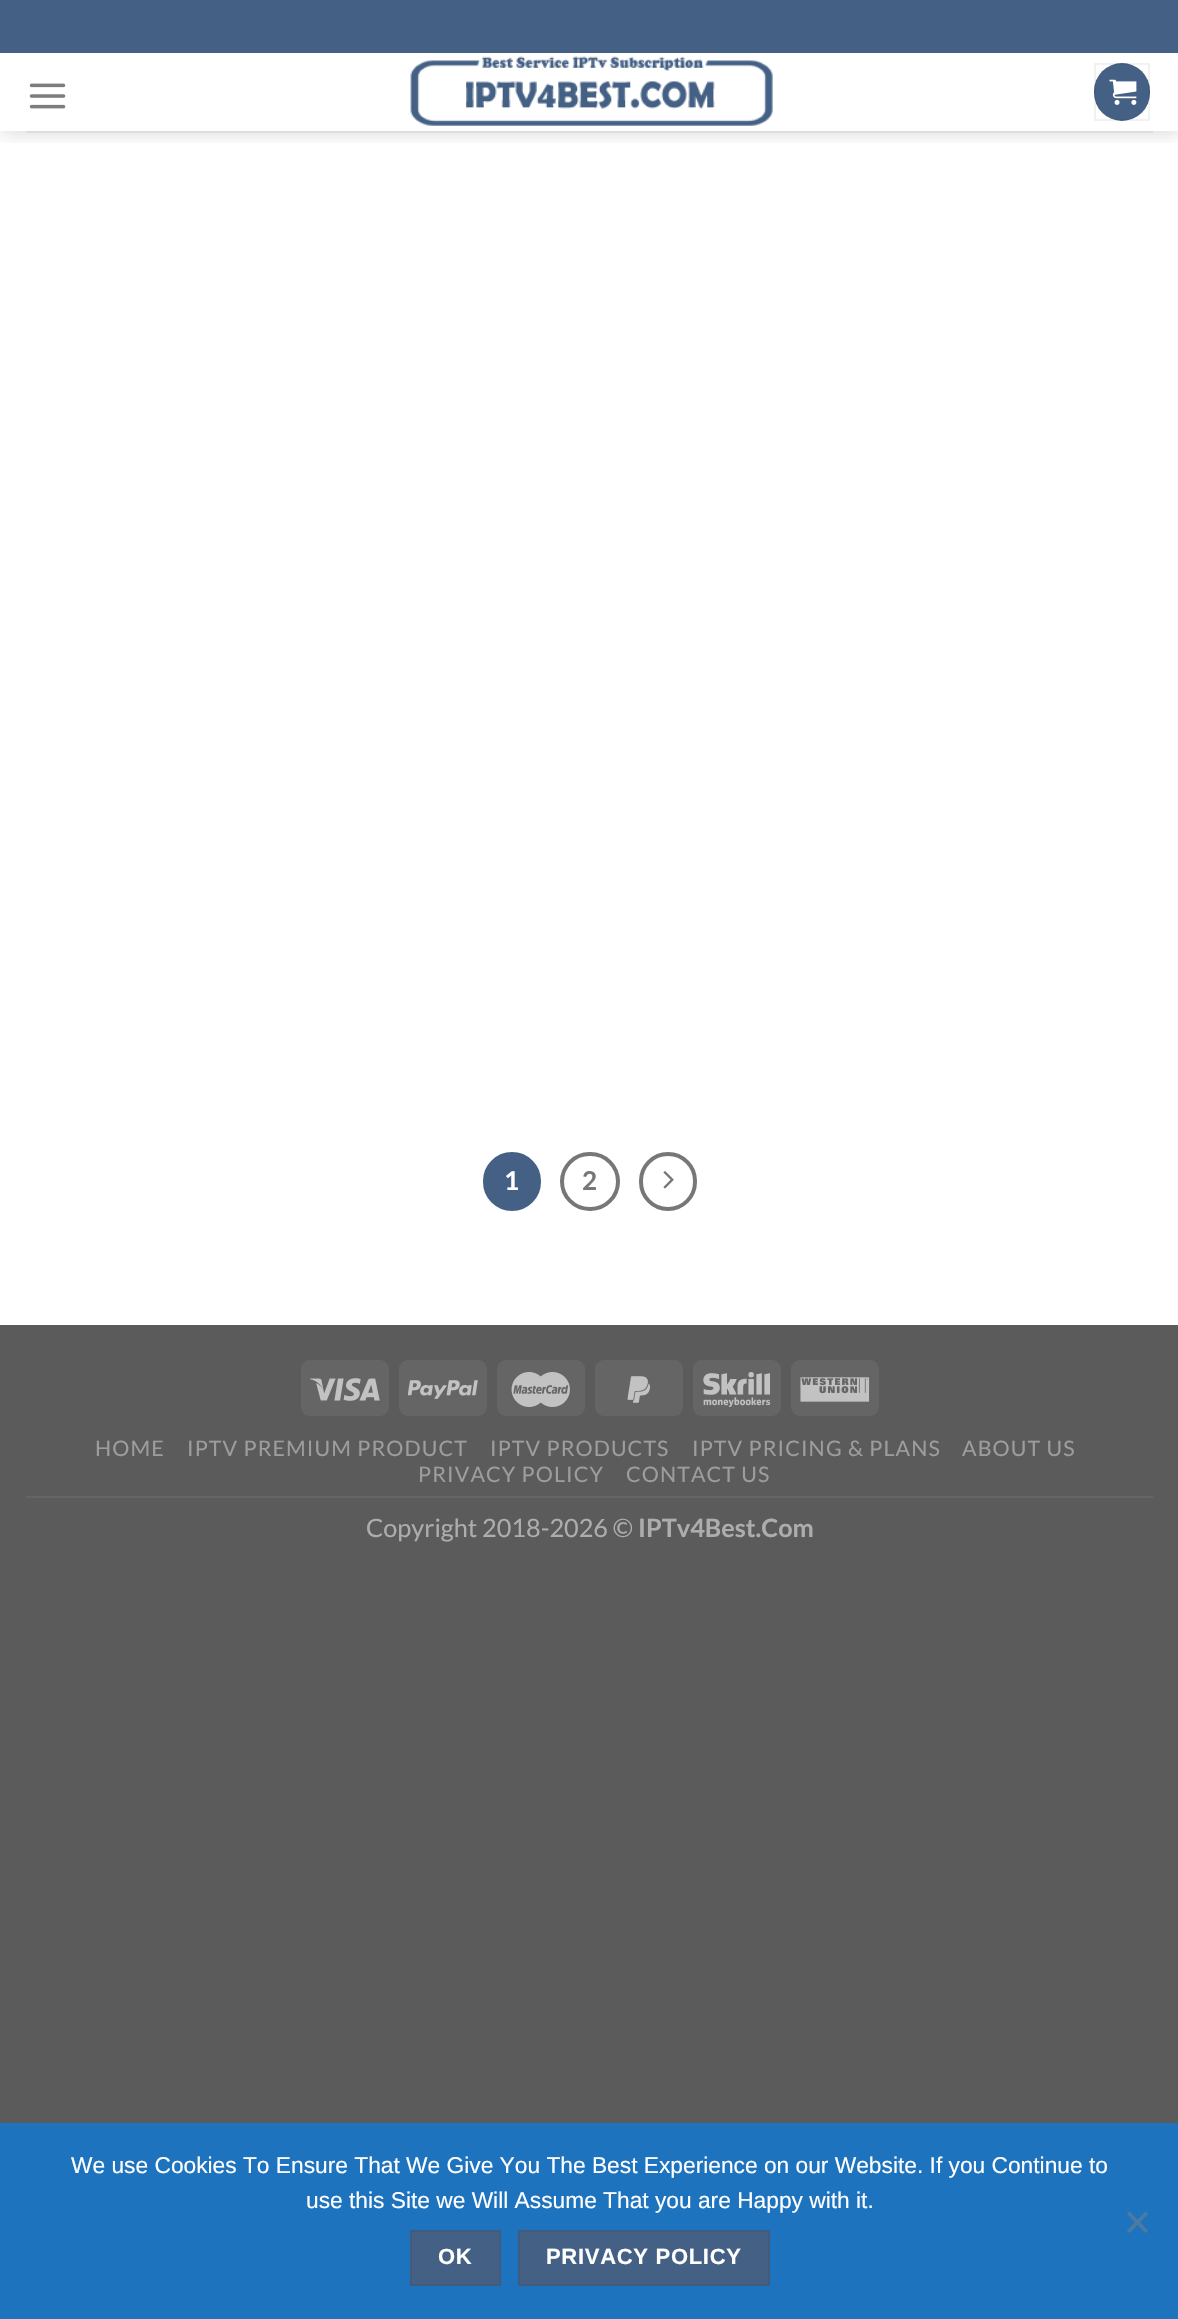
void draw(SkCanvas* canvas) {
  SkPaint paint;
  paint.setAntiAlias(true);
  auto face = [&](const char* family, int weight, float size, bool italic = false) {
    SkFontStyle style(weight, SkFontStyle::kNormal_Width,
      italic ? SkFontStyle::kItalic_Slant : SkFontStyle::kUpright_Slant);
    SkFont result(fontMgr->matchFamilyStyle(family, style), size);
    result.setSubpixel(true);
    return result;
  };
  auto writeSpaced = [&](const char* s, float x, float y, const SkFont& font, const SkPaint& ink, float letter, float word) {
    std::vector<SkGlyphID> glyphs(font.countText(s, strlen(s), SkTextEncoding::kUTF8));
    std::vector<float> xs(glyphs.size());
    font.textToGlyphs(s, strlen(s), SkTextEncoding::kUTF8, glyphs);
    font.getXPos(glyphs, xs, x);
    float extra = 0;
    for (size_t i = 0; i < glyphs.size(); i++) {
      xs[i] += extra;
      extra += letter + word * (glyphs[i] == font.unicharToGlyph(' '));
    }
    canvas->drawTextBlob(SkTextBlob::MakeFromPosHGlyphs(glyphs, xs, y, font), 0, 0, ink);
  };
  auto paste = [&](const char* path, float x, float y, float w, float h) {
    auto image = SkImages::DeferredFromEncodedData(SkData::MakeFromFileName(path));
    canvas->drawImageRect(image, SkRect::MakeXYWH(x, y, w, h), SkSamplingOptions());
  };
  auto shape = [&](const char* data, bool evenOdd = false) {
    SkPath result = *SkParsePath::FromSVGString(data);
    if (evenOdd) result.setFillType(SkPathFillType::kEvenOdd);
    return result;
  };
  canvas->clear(0xff5b5b5b);
  paint.setColor(0xffffffff);
  canvas->drawRect(SkRect::MakeXYWH(0, 53, 1178, 1272), paint);
  canvas->save();
  canvas->clipRect(SkRect::MakeXYWH(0, 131, 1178, 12));
  paint.setColor(0x26000000);
  paint.setMaskFilter(SkMaskFilter::MakeBlur(kNormal_SkBlurStyle, 9));
  canvas->drawRect(SkRect::MakeXYWH(2, 2, 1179, 131), paint);
  paint.setMaskFilter(nullptr);
  canvas->restore();
  paint.setColor(0xff446084);
  canvas->drawRect(SkRect::MakeXYWH(0, 0, 1178, 53), paint);
  paste("img/1.png", 29, 83, 37, 26);
  paste("img/2.png", 410, 56, 363, 70);
  canvas->drawRoundRect(SkRect::MakeXYWH(1094, 63, 56, 58), 28, 28, paint);
  paint.setStroke(true);
  paint.setStrokeWidth(2);
  paint.setColor(0x0d000000);
  canvas->drawRect(SkRect::MakeXYWH(1095, 64, 54, 56), paint);
  paste("img/3.png", 1109, 79, 28, 26);
  paint.setStroke(false);
  paint.setColor(0x1a777777);
  canvas->drawRect(SkRect::MakeXYWH(26, 131, 1127, 2), paint);
  paint.setColor(0xff446084);
  canvas->drawRoundRect(SkRect::MakeXYWH(485, 1154, 54, 55), 27, 27, paint);
  paint.setStroke(true);
  paint.setStrokeWidth(4);
  canvas->drawRoundRect(SkRect::MakeXYWH(485, 1154, 54, 55), 27, 27, paint);
  paint.setColor(0xff777777);
  canvas->drawRoundRect(SkRect::MakeXYWH(562, 1154, 56, 55), 27.5f, 27.5f, paint);
  canvas->drawRoundRect(SkRect::MakeXYWH(641, 1154, 54, 55), 27, 27, paint);
  paste("img/4.png", 663, 1171, 11, 18);
  paint.setStroke(false);
  paint.setColor(0xff656565);
  canvas->drawRoundRect(SkRect::MakeXYWH(301, 1360, 88, 56), 9, 9, paint);
  paste("img/5.png", 310, 1378, 70, 23);
  canvas->drawRoundRect(SkRect::MakeXYWH(399, 1360, 88, 56), 9, 9, paint);
  paste("img/6.png", 408, 1380, 70, 19);
  canvas->drawRoundRect(SkRect::MakeXYWH(497, 1360, 88, 56), 9, 9, paint);
  paste("img/7.png", 511, 1372, 59, 35);
  canvas->drawRoundRect(SkRect::MakeXYWH(595, 1360, 88, 56), 9, 9, paint);
  paste("img/8.png", 627, 1376, 23, 27);
  canvas->drawRoundRect(SkRect::MakeXYWH(693, 1360, 88, 56), 9, 9, paint);
  paste("img/9.png", 703, 1372, 68, 35);
  canvas->drawRoundRect(SkRect::MakeXYWH(791, 1360, 88, 56), 9, 9, paint);
  paste("img/10.png", 800, 1377, 70, 25);
  canvas->drawRect(SkRect::MakeXYWH(26, 1496, 1127, 2), paint);
  paint.setColor(0xff1e73be);
  canvas->drawRect(SkRect::MakeXYWH(0, 2123, 1178, 196), paint);
  paint.setColor(0xff4f7a9f);
  canvas->drawPath(shape("M1145.5 2211.5L1148 2214L1129.5 2233L1127 2230.5Z"), paint);
  canvas->drawPath(shape("M1127 2214L1129.5 2211.5L1148 2230.5L1145.5 2233Z"), paint);
  paint.setColor(0xff446084);
  canvas->drawRect(SkRect::MakeXYWH(411, 2231, 89, 54), paint);
  paint.setStroke(true);
  paint.setStrokeWidth(2);
  paint.setColor(0xff415b7d);
  canvas->drawRect(SkRect::MakeXYWH(411, 2231, 89, 54), paint);
  paint.setStroke(false);
  paint.setColor(0xff446084);
  canvas->drawRect(SkRect::MakeXYWH(519, 2231, 250, 54), paint);
  paint.setStroke(true);
  paint.setColor(0xff415b7d);
  canvas->drawRect(SkRect::MakeXYWH(519, 2231, 250, 54), paint);
  auto f0 = face("Lato", 700, 26);
  paint.setStroke(false);
  paint.setColor(0xffffffff);
  canvas->drawString("1", 504, 1190, f0, paint);
  paint.setColor(0xff777777);
  canvas->drawString("2", 582, 1190, f0, paint);
  auto f1 = face("Lato", 400, 21.4f);
  paint.setColor(0xff9d9d9d);
  {
    const struct { const char* s; float x, y; } items[] = {
      {"HOME", 95, 1456},
      {"IPTV PREMIUM PRODUCT", 187, 1456},
      {"IPTV PRODUCTS", 490, 1456},
      {"IPTV PRICING & PLANS", 692, 1456},
      {"ABOUT US", 962, 1456},
      {"PRIVACY POLICY", 418, 1482},
      {"CONTACT US", 626, 1482},
    };
    for (auto [s, x, y] : items) {
      writeSpaced(s, x, y, f1, paint, 1.1f, 0);
    }
  }
  auto f2 = face("Lato", 400, 25.25f);
  paint.setColor(0xffadadad);
  canvas->drawString("Copyright 2018-2026 ©", 366, 1537, f2, paint);
  auto f3 = face("Lato", 700, 25.25f);
  canvas->drawString("IPTv4Best.Com", 638, 1537, f3, paint);
  auto f4 = face("Liberation Sans", 400, 22.75f);
  paint.setColor(0xffffffff);
  canvas->drawString("We use Cookies To Ensure That We Give You The Best Experience on our Website. If you Continue to", 71, 2173, f4, paint);
  canvas->drawString("use this Site we Will Assume That you are Happy with it.", 306, 2208, f4, paint);
  auto f5 = face("Liberation Sans", 700, 22);
  writeSpaced("OK", 438, 2264, f5, paint, 0.7f, 0);
  writeSpaced("PRIVACY POLICY", 546, 2264, f5, paint, 0.7f, 0);
}
